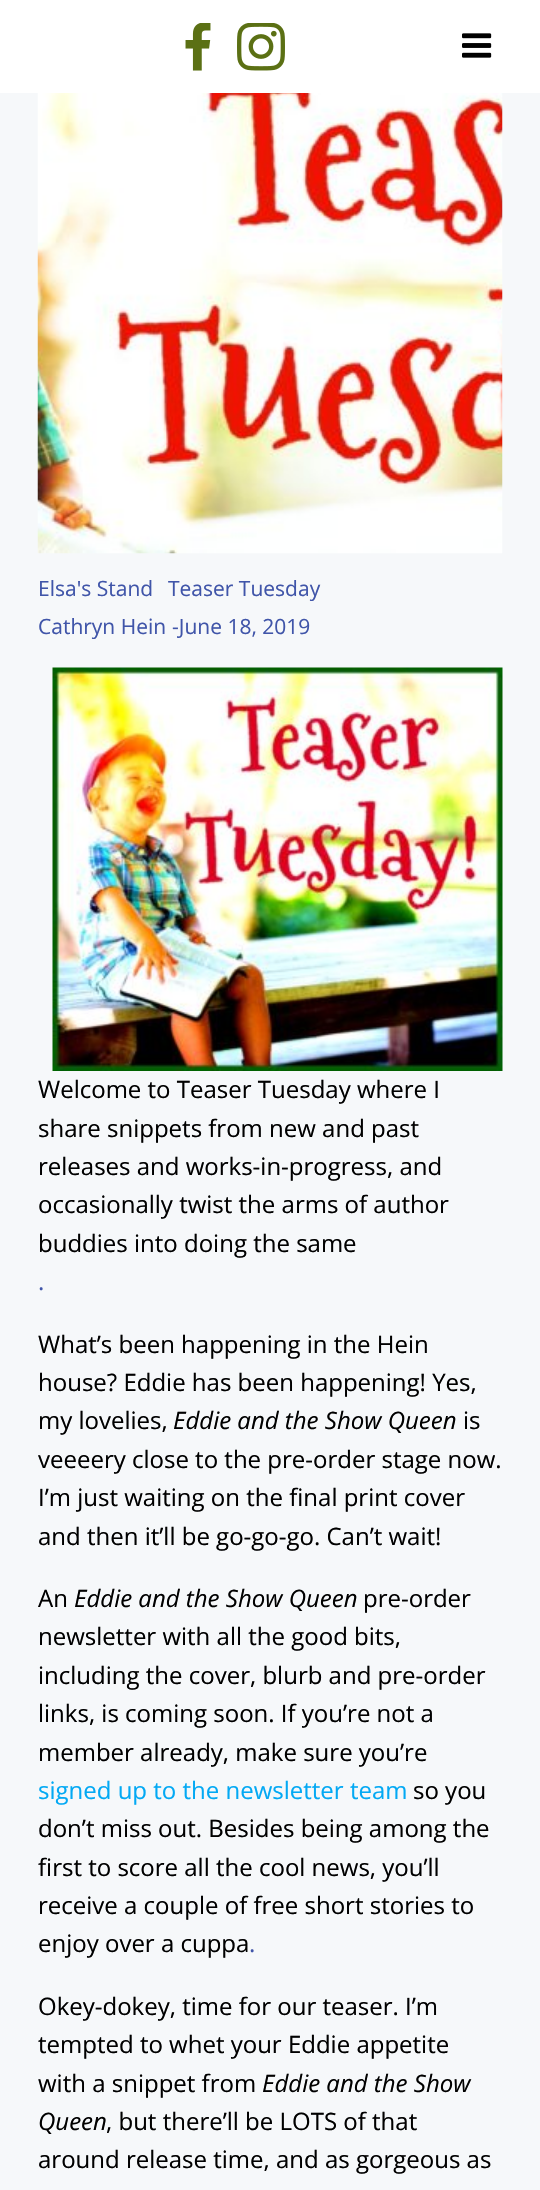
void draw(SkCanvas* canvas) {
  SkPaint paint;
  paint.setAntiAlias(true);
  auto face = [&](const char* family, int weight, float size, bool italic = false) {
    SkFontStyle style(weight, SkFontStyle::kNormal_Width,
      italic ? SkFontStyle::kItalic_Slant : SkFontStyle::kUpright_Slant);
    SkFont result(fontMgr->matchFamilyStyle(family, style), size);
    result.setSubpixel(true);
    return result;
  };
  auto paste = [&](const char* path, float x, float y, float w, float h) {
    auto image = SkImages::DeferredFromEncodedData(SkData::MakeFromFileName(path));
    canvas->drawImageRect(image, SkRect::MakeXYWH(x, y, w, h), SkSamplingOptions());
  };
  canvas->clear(0xfff6f8fa);
  paint.setColor(0xffffffff);
  canvas->drawRect(SkRect::MakeXYWH(0, 0, 540, 93), paint);
  paste("img/1.png", 185, 23, 26, 48);
  paste("img/2.png", 237, 23, 48, 48);
  paste("img/3.png", 462, 33, 30, 25);
  paste("img/4.png", 37, 93, 466, 461);
  paste("img/5.png", 52, 667, 451, 404);
  auto f0 = face("Open Sans", 400, 21);
  paint.setColor(0xff4055a9);
  {
    const struct { const char* s; float x, y; } items[] = {
      {"Elsa's Stand", 38, 596},
      {"Teaser Tuesday", 168, 596},
      {"Cathryn Hein", 38, 634},
      {"-June 18, 2019", 172, 634},
    };
    for (auto [s, x, y] : items) {
      canvas->drawString(s, x, y, f0, paint);
    }
  }
  auto f1 = face("Open Sans", 400, 24);
  paint.setColor(0xff000000);
  {
    const struct { const char* s; float x, y; } items[] = {
      {"Welcome to Teaser Tuesday where I", 38, 1098},
      {"share snippets from new and past", 38, 1137},
      {"releases and works-in-progress, and", 38, 1175},
      {"occasionally twist the arms of author", 38, 1213},
      {"buddies into doing the same", 38, 1252},
    };
    for (auto [s, x, y] : items) {
      canvas->drawString(s, x, y, f1, paint);
    }
  }
  paint.setColor(0xff4055a9);
  canvas->drawString(".", 38, 1290, f1, paint);
  paint.setColor(0xff000000);
  {
    const struct { const char* s; float x, y; } items[] = {
      {"What’s been happening in the Hein", 38, 1353},
      {"house? Eddie has been happening! Yes,", 38, 1391},
      {"my lovelies,", 38, 1429},
    };
    for (auto [s, x, y] : items) {
      canvas->drawString(s, x, y, f1, paint);
    }
  }
  auto f2 = face("Open Sans", 400, 24, true);
  canvas->drawString("Eddie and the Show Queen", 173, 1429, f2, paint);
  {
    const struct { const char* s; float x, y; } items[] = {
      {"is", 463, 1429},
      {"veeeery close to the pre-order stage now.", 38, 1468},
      {"I’m just waiting on the final print cover", 38, 1506},
      {"and then it’ll be go-go-go. Can’t wait!", 38, 1545},
      {"An", 38, 1607},
    };
    for (auto [s, x, y] : items) {
      canvas->drawString(s, x, y, f1, paint);
    }
  }
  canvas->drawString("Eddie and the Show Queen", 74, 1607, f2, paint);
  {
    const struct { const char* s; float x, y; } items[] = {
      {"pre-order", 363, 1607},
      {"newsletter with all the good bits,", 38, 1645},
      {"including the cover, blurb and pre-order", 38, 1684},
      {"links, is coming soon. If you’re not a", 38, 1722},
      {"member already, make sure you’re", 38, 1761},
    };
    for (auto [s, x, y] : items) {
      canvas->drawString(s, x, y, f1, paint);
    }
  }
  paint.setColor(0xff03a9f4);
  canvas->drawString("signed up to the newsletter team", 38, 1799, f1, paint);
  paint.setColor(0xff000000);
  {
    const struct { const char* s; float x, y; } items[] = {
      {"so you", 413, 1799},
      {"don’t miss out. Besides being among the", 38, 1837},
      {"first to score all the cool news, you’ll", 38, 1876},
      {"receive a couple of free short stories to", 38, 1914},
      {"enjoy over a cuppa", 38, 1952},
    };
    for (auto [s, x, y] : items) {
      canvas->drawString(s, x, y, f1, paint);
    }
  }
  paint.setColor(0xff4055a9);
  canvas->drawString(".", 249, 1952, f1, paint);
  paint.setColor(0xff000000);
  {
    const struct { const char* s; float x, y; } items[] = {
      {"Okey-dokey, time for our teaser. I’m", 38, 2015},
      {"tempted to whet your Eddie appetite", 38, 2053},
      {"with a snippet from", 38, 2092},
    };
    for (auto [s, x, y] : items) {
      canvas->drawString(s, x, y, f1, paint);
    }
  }
  canvas->drawString("Eddie and the Show", 262, 2092, f2, paint);
  canvas->drawString("Queen", 38, 2130, f2, paint);
  canvas->drawString(", but there’ll be LOTS of that", 106, 2130, f1, paint);
  canvas->drawString("around release time, and as gorgeous as", 38, 2168, f1, paint);
}
